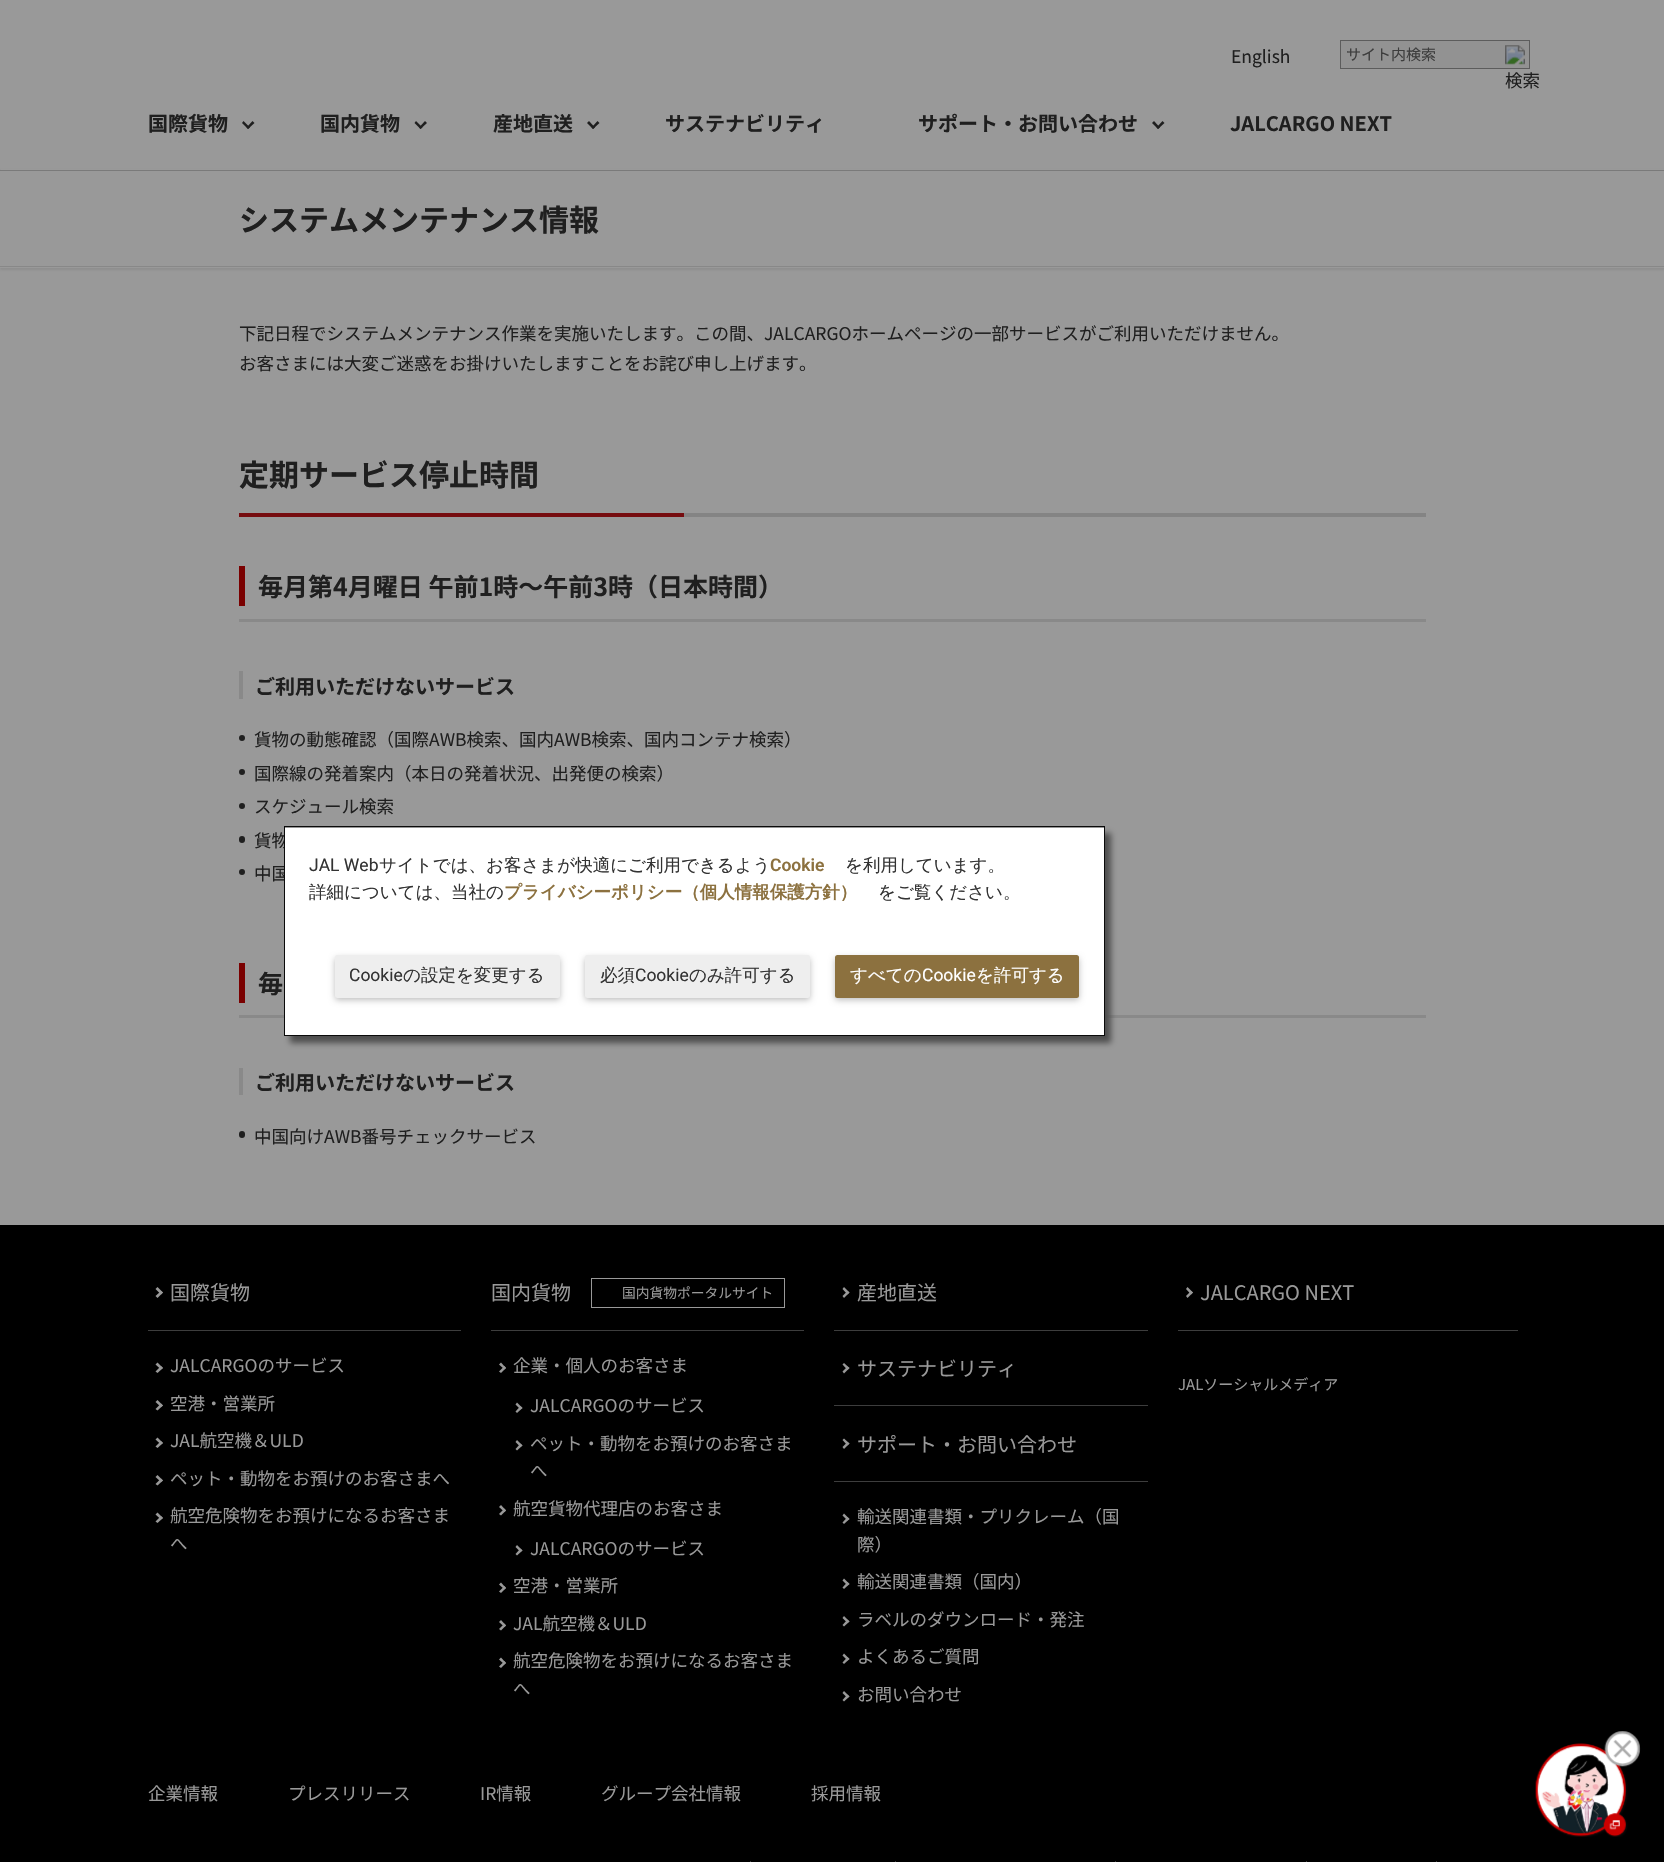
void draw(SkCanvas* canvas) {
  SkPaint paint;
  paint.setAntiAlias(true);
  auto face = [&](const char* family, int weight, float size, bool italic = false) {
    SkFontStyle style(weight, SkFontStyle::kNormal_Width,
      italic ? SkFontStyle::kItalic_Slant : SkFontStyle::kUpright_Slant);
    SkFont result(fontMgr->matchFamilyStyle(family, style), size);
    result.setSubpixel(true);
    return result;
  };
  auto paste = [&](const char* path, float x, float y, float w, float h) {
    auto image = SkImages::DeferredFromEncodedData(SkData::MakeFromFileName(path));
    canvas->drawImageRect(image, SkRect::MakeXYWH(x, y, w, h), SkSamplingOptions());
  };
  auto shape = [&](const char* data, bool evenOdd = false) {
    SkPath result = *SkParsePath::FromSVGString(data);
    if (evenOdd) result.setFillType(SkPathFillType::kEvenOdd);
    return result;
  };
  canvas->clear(0xff999999);
  paint.setColor(0xff8e8e8e);
  paint.setMaskFilter(SkMaskFilter::MakeBlur(kNormal_SkBlurStyle, 1));
  canvas->drawRect(SkRect::MakeXYWH(0, 170, 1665, 100), paint);
  paint.setMaskFilter(nullptr);
  paint.setColor(0xff7a7a7a);
  canvas->drawRect(SkRect::MakeXYWH(0, 170, 1664, 1), paint);
  paint.setColor(0xff999999);
  canvas->drawRect(SkRect::MakeXYWH(1, 169, 1663, 1), paint);
  paint.setColor(0xff929292);
  canvas->drawRect(SkRect::MakeXYWH(1340.5f, 40.5f, 189, 28), paint);
  paint.setStroke(true);
  paint.setStrokeWidth(1);
  paint.setColor(0xff5c5c5c);
  canvas->drawRect(SkRect::MakeXYWH(1340.5f, 40.5f, 189, 28), paint);
  paste("img/1.png", 1505, 45, 20, 20);
  paint.setStroke(false);
  paint.setColor(0xff1f1f1f);
  canvas->drawPath(shape("M252.5 121L254.5 123L248 129L246.5 127.5Z"), paint);
  canvas->drawPath(shape("M243.5 121L250 127.5L248 129L242 123Z"), paint);
  canvas->drawPath(shape("M425 121L427 123L420.5 129L419 127.5Z"), paint);
  canvas->drawPath(shape("M416 121L422.5 127.5L420.5 129L414.5 123Z"), paint);
  canvas->drawPath(shape("M597.5 121L599.5 123L593 129L591.5 127.5Z"), paint);
  canvas->drawPath(shape("M589 121L595 127.5L593 129L587 123Z"), paint);
  canvas->drawPath(shape("M1162.5 121L1164.5 123L1158 129L1156.5 127.5Z"), paint);
  canvas->drawPath(shape("M1154 121L1160 127.5L1158 129L1152 123Z"), paint);
  {
    const struct { float x, y, w, h; SkColor color; } items[] = {
      {0, 171, 1664, 97, 0xff999999},
      {0, 266, 1664, 1, 0xff888888},
      {684, 513, 742, 4, 0xff848484},
      {239, 513, 445, 4, 0xff760c0f},
      {239, 619, 1187, 3, 0xff898989},
      {239, 566, 6, 40, 0xff7a0000},
      {239, 671, 4, 28, 0xff898989},
    };
    for (auto [x, y, w, h, color] : items) {
      paint.setColor(color);
      canvas->drawRect(SkRect::MakeXYWH(x, y, w, h), paint);
    }
  }
  paint.setColor(0xff1f1f1f);
  canvas->drawCircle(242, 738, 3, paint);
  canvas->drawCircle(242, 772, 3, paint);
  canvas->drawCircle(242, 806, 3, paint);
  canvas->drawRoundRect(SkRect::MakeXYWH(239, 836, 6, 7), 3, 3, paint);
  canvas->drawCircle(242, 872, 3, paint);
  {
    const struct { float x, y, w, h; SkColor color; } items[] = {
      {239, 1015, 1187, 3, 0xff898989},
      {239, 963, 6, 40, 0xff7a0000},
      {239, 1068, 4, 27, 0xff898989},
    };
    for (auto [x, y, w, h, color] : items) {
      paint.setColor(color);
      canvas->drawRect(SkRect::MakeXYWH(x, y, w, h), paint);
    }
  }
  paint.setColor(0xff1f1f1f);
  canvas->drawRoundRect(SkRect::MakeXYWH(239, 1131, 6, 7), 3, 3, paint);
  paint.setColor(0xff000000);
  canvas->drawRect(SkRect::MakeXYWH(0, 1225, 1664, 637), paint);
  paint.setColor(0xff3d3d3d);
  canvas->drawRect(SkRect::MakeXYWH(148, 1330, 313, 1), paint);
  paint.setColor(0xff999999);
  canvas->drawPath(shape("M155.5 1289L157.5 1287L163 1292.5L161 1294.5Z"), paint);
  canvas->drawPath(shape("M155.5 1296L161 1291L163 1292.5L157.5 1298Z"), paint);
  canvas->drawPath(shape("M155.5 1364.5L157.5 1362.5L163 1368L161 1369.5Z"), paint);
  canvas->drawPath(shape("M155.5 1371.5L161 1366L163 1368L157.5 1373Z"), paint);
  canvas->drawPath(shape("M155.5 1402L157.5 1400L163 1405.5L161 1407Z"), paint);
  canvas->drawPath(shape("M155.5 1409L161 1403.5L163 1405.5L157.5 1410.5Z"), paint);
  canvas->drawPath(shape("M155.5 1439.5L157.5 1437.5L163 1443L161 1444.5Z"), paint);
  canvas->drawPath(shape("M155.5 1446.5L161 1441L163 1443L157.5 1448Z"), paint);
  canvas->drawPath(shape("M155.5 1477L157.5 1475L163 1480.5L161 1482Z"), paint);
  canvas->drawPath(shape("M155.5 1484L161 1478.5L163 1480.5L157.5 1485.5Z"), paint);
  canvas->drawPath(shape("M155.5 1514.5L157.5 1512.5L163 1518L161 1519.5Z"), paint);
  canvas->drawPath(shape("M155.5 1521.5L161 1516L163 1518L157.5 1523Z"), paint);
  paint.setColor(0xff3d3d3d);
  canvas->drawRect(SkRect::MakeXYWH(491, 1330, 313, 1), paint);
  paint.setStroke(true);
  paint.setColor(0xff999999);
  canvas->drawRect(SkRect::MakeXYWH(591.5f, 1278.5f, 193, 29), paint);
  paint.setStroke(false);
  canvas->drawPath(shape("M499 1364.5L501 1362.5L506 1368L504.5 1369.5Z"), paint);
  canvas->drawPath(shape("M499 1371.5L504.5 1366L506 1368L501 1373Z"), paint);
  canvas->drawPath(shape("M515.5 1404.5L517 1402.5L522.5 1408L520.5 1409.5Z"), paint);
  canvas->drawPath(shape("M515.5 1411.5L520.5 1406L522.5 1408L517 1413Z"), paint);
  canvas->drawPath(shape("M515.5 1442L517 1440L522.5 1445.5L520.5 1447Z"), paint);
  canvas->drawPath(shape("M515.5 1449L520.5 1443.5L522.5 1445.5L517 1450.5Z"), paint);
  canvas->drawPath(shape("M499 1507L501 1505L506 1510.5L504.5 1512Z"), paint);
  canvas->drawPath(shape("M499 1514L504.5 1508.5L506 1510.5L501 1515.5Z"), paint);
  canvas->drawPath(shape("M515.5 1547L517 1545L522.5 1550.5L520.5 1552Z"), paint);
  canvas->drawPath(shape("M515.5 1554L520.5 1548.5L522.5 1550.5L517 1555.5Z"), paint);
  canvas->drawPath(shape("M499 1584.5L501 1582.5L506 1588L504.5 1589.5Z"), paint);
  canvas->drawPath(shape("M499 1591.5L504.5 1586L506 1588L501 1593Z"), paint);
  canvas->drawPath(shape("M499 1622L501 1620L506 1625.5L504.5 1627Z"), paint);
  canvas->drawPath(shape("M499 1629L504.5 1623.5L506 1625.5L501 1630.5Z"), paint);
  canvas->drawPath(shape("M499 1659.5L501 1657.5L506 1663L504.5 1664.5Z"), paint);
  canvas->drawPath(shape("M499 1666.5L504.5 1661L506 1663L501 1668Z"), paint);
  paint.setColor(0xff3d3d3d);
  canvas->drawRect(SkRect::MakeXYWH(834, 1330, 314, 1), paint);
  paint.setColor(0xff999999);
  canvas->drawPath(shape("M842.5 1289L844 1287L849.5 1292.5L847.5 1294.5Z"), paint);
  canvas->drawPath(shape("M842.5 1296L847.5 1291L849.5 1292.5L844 1298Z"), paint);
  paint.setColor(0xff3d3d3d);
  canvas->drawRect(SkRect::MakeXYWH(834, 1405, 314, 1), paint);
  paint.setColor(0xff999999);
  canvas->drawPath(shape("M842.5 1364.5L844 1363L849.5 1368L847.5 1370Z"), paint);
  canvas->drawPath(shape("M842.5 1371.5L847.5 1366.5L849.5 1368L844 1373.5Z"), paint);
  paint.setColor(0xff3d3d3d);
  canvas->drawRect(SkRect::MakeXYWH(834, 1481, 314, 1), paint);
  paint.setColor(0xff999999);
  canvas->drawPath(shape("M842.5 1440L844 1438.5L849.5 1443.5L847.5 1445.5Z"), paint);
  canvas->drawPath(shape("M842.5 1447L847.5 1442L849.5 1443.5L844 1449Z"), paint);
  canvas->drawPath(shape("M842.5 1515.5L844 1513.5L849.5 1519L847.5 1520.5Z"), paint);
  canvas->drawPath(shape("M842.5 1522.5L847.5 1517L849.5 1519L844 1524Z"), paint);
  canvas->drawPath(shape("M842.5 1580.5L844 1578.5L849.5 1584L847.5 1585.5Z"), paint);
  canvas->drawPath(shape("M842.5 1587.5L847.5 1582L849.5 1584L844 1589Z"), paint);
  canvas->drawPath(shape("M842.5 1618L844 1616L849.5 1621.5L847.5 1623Z"), paint);
  canvas->drawPath(shape("M842.5 1625L847.5 1619.5L849.5 1621.5L844 1626.5Z"), paint);
  canvas->drawPath(shape("M842.5 1655.5L844 1653.5L849.5 1659L847.5 1660.5Z"), paint);
  canvas->drawPath(shape("M842.5 1662.5L847.5 1657L849.5 1659L844 1664Z"), paint);
  canvas->drawPath(shape("M842.5 1693L844 1691L849.5 1696.5L847.5 1698Z"), paint);
  canvas->drawPath(shape("M842.5 1700L847.5 1694.5L849.5 1696.5L844 1701.5Z"), paint);
  paint.setColor(0xff3d3d3d);
  canvas->drawRect(SkRect::MakeXYWH(1178, 1330, 340, 1), paint);
  paint.setColor(0xff999999);
  canvas->drawPath(shape("M1186 1289L1187.5 1287L1193 1292.5L1191 1294.5Z"), paint);
  canvas->drawPath(shape("M1186 1296L1191 1291L1193 1292.5L1187.5 1298Z"), paint);
  {
    const struct { float x, y, w, h; SkColor color; } items[] = {
      {750, 1861, 1, 1, 0xff3d3d3d},
      {895, 1861, 1, 1, 0xff3d3d3d},
      {1115, 1861, 1, 1, 0xff3d3d3d},
      {1306, 1861, 1, 1, 0xff3d3d3d},
      {1436, 1861, 1, 1, 0xff3d3d3d},
    };
    for (auto [x, y, w, h, color] : items) {
      paint.setColor(color);
      canvas->drawRect(SkRect::MakeXYWH(x, y, w, h), paint);
    }
  }
  paint.setColor(0xff4d4d4d);
  paint.setMaskFilter(SkMaskFilter::MakeBlur(kNormal_SkBlurStyle, 3));
  canvas->drawRect(SkRect::MakeXYWH(290, 833, 821, 210), paint);
  paint.setMaskFilter(nullptr);
  paste("img/2.png", 1535, 1731, 106, 106);
  auto f0 = face("Noto Sans JP", 400, 17.5f);
  paint.setColor(0xff1f1f1f);
  canvas->drawString("English", 1231, 63, f0, paint);
  auto f1 = face("Noto Sans JP", 400, 15);
  paint.setColor(0xff3d3d3d);
  canvas->drawString("サイト内検索", 1346, 60, f1, paint);
  paint.setColor(0xff1f1f1f);
  canvas->drawString("検索", 1505, 87, f0, paint);
  auto f2 = face("Noto Sans JP", 700, 20);
  {
    const struct { const char* s; float x, y; } items[] = {
      {"国際貨物", 148, 131},
      {"国内貨物", 320, 131},
      {"産地直送", 493, 131},
      {"サステナビリティ", 665, 131},
      {"サポート・お問い合わせ", 918, 131},
      {"JALCARGO NEXT", 1230, 131},
    };
    for (auto [s, x, y] : items) {
      canvas->drawString(s, x, y, f2, paint);
    }
  }
  auto f3 = face("Noto Sans JP", 700, 30);
  canvas->drawString("システムメンテナンス情報", 239, 231, f3, paint);
  canvas->drawString("下記日程でシステムメンテナンス作業を実施いたします。この間、JALCARGOホームページの一部サービスがご利用いただけません。", 239, 340, f0, paint);
  canvas->drawString("お客さまには大変ご迷惑をお掛けいたしますことをお詫び申し上げます。", 239, 370, f0, paint);
  canvas->drawString("定期サービス停止時間", 239, 486, f3, paint);
  auto f4 = face("Noto Sans JP", 700, 25);
  canvas->drawString("毎月第4月曜日 午前1時〜午前3時（日本時間）", 258, 596, f4, paint);
  canvas->drawString("ご利用いただけないサービス", 255, 694, f2, paint);
  {
    const struct { const char* s; float x, y; } items[] = {
      {"貨物の動態確認（国際AWB検索、国内AWB検索、国内コンテナ検索）", 254, 746},
      {"国際線の発着案内（本日の発着状況、出発便の検索）", 254, 780},
      {"スケジュール検索", 254, 813},
      {"貨物", 254, 847},
      {"中国", 254, 880},
    };
    for (auto [s, x, y] : items) {
      canvas->drawString(s, x, y, f0, paint);
    }
  }
  canvas->drawString("毎", 258, 993, f4, paint);
  canvas->drawString("ご利用いただけないサービス", 255, 1090, f2, paint);
  canvas->drawString("中国向けAWB番号チェックサービス", 254, 1143, f0, paint);
  auto f5 = face("Noto Sans JP", 400, 20);
  paint.setColor(0xff999999);
  canvas->drawString("国際貨物", 170, 1300, f5, paint);
  {
    const struct { const char* s; float x, y; } items[] = {
      {"JALCARGOのサービス", 170, 1372},
      {"空港・営業所", 170, 1410},
      {"JAL航空機＆ULD", 170, 1447},
      {"ペット・動物をお預けのお客さまへ", 170, 1485},
      {"航空危険物をお預けになるお客さま", 170, 1522},
      {"へ", 170, 1550},
    };
    for (auto [s, x, y] : items) {
      canvas->drawString(s, x, y, f0, paint);
    }
  }
  canvas->drawString("国内貨物", 491, 1300, f5, paint);
  auto f6 = face("Noto Sans JP", 400, 13.75f);
  canvas->drawString("国内貨物ポータルサイト", 622, 1298, f6, paint);
  {
    const struct { const char* s; float x, y; } items[] = {
      {"企業・個人のお客さま", 513, 1372},
      {"JALCARGOのサービス", 530, 1412},
      {"ペット・動物をお預けのお客さま", 530, 1450},
      {"へ", 530, 1477},
      {"航空貨物代理店のお客さま", 513, 1515},
      {"JALCARGOのサービス", 530, 1555},
      {"空港・営業所", 513, 1592},
      {"JAL航空機＆ULD", 513, 1630},
      {"航空危険物をお預けになるお客さま", 513, 1667},
      {"へ", 513, 1695},
    };
    for (auto [s, x, y] : items) {
      canvas->drawString(s, x, y, f0, paint);
    }
  }
  {
    const struct { const char* s; float x, y; } items[] = {
      {"産地直送", 857, 1300},
      {"サステナビリティ", 857, 1376},
      {"サポート・お問い合わせ", 857, 1452},
    };
    for (auto [s, x, y] : items) {
      canvas->drawString(s, x, y, f5, paint);
    }
  }
  {
    const struct { const char* s; float x, y; } items[] = {
      {"輸送関連書類・プリクレーム（国", 857, 1523},
      {"際）", 857, 1551},
      {"輸送関連書類（国内）", 857, 1588},
      {"ラベルのダウンロード・発注", 857, 1626},
      {"よくあるご質問", 857, 1663},
      {"お問い合わせ", 857, 1701},
    };
    for (auto [s, x, y] : items) {
      canvas->drawString(s, x, y, f0, paint);
    }
  }
  canvas->drawString("JALCARGO NEXT", 1200, 1300, f5, paint);
  canvas->drawString("JALソーシャルメディア", 1178, 1390, f1, paint);
  {
    const struct { const char* s; float x, y; } items[] = {
      {"企業情報", 148, 1800},
      {"プレスリリース", 288, 1800},
      {"IR情報", 480, 1800},
      {"グループ会社情報", 601, 1800},
      {"採用情報", 811, 1800},
    };
    for (auto [s, x, y] : items) {
      canvas->drawString(s, x, y, f0, paint);
    }
  }
  paint.setStroke(true);
  paint.setColor(0xff0a0a0a);
  canvas->drawRect(SkRect::MakeXYWH(284.5f, 826.5f, 820, 209), paint);
  paint.setStroke(false);
  paint.setColor(0xffffffff);
  canvas->drawRect(SkRect::MakeXYWH(285, 828, 819, 207), paint);
  auto f7 = face("Roboto", 400, 17.5f);
  paint.setColor(0xff333333);
  canvas->drawString("JAL Web", 309, 871, f7, paint);
  auto f8 = face("WenQuanYi Zen Hei", 500, 17.5f);
  canvas->drawString("サイトでは、お客さまが快適にご利用できるよう", 379, 871, f8, paint);
  auto f9 = face("Roboto", 600, 17.5f);
  paint.setColor(0xff8c713f);
  canvas->drawString("Cookie", 770, 871, f9, paint);
  paint.setColor(0xff333333);
  canvas->drawString("を利用しています。", 845, 871, f8, paint);
  canvas->drawString("詳細については、当社の", 309, 898, f8, paint);
  auto f10 = face("WenQuanYi Zen Hei", 700, 17.5f);
  paint.setColor(0xff8c713f);
  canvas->drawString("プライバシーポリシー（個人情報保護方針）", 504, 898, f10, paint);
  paint.setColor(0xff333333);
  canvas->drawString("をご覧ください。", 878, 898, f8, paint);
  paint.setColor(0x42000000);
  paint.setMaskFilter(SkMaskFilter::MakeBlur(kNormal_SkBlurStyle, 3));
  canvas->drawRoundRect(SkRect::MakeXYWH(335, 958, 225, 42), 2.5f, 2.5f, paint);
  paint.setMaskFilter(nullptr);
  paint.setColor(0xffeeeeee);
  canvas->drawRoundRect(SkRect::MakeXYWH(335, 955, 225, 43), 2.5f, 2.5f, paint);
  paint.setColor(0xff333333);
  canvas->drawString("Cookie", 349, 981, f7, paint);
  canvas->drawString("の設定を変更する", 403, 981, f8, paint);
  paint.setColor(0x42000000);
  paint.setMaskFilter(SkMaskFilter::MakeBlur(kNormal_SkBlurStyle, 3));
  canvas->drawRoundRect(SkRect::MakeXYWH(585, 958, 225, 42), 2.5f, 2.5f, paint);
  paint.setMaskFilter(nullptr);
  paint.setColor(0xffeeeeee);
  canvas->drawRoundRect(SkRect::MakeXYWH(585, 955, 225, 43), 2.5f, 2.5f, paint);
  paint.setColor(0xff333333);
  canvas->drawString("必須", 600, 981, f8, paint);
  canvas->drawString("Cookie", 635, 981, f7, paint);
  canvas->drawString("のみ許可する", 689, 981, f8, paint);
  paint.setColor(0x42000000);
  paint.setMaskFilter(SkMaskFilter::MakeBlur(kNormal_SkBlurStyle, 3));
  canvas->drawRoundRect(SkRect::MakeXYWH(835, 958, 244, 42), 2.5f, 2.5f, paint);
  paint.setMaskFilter(nullptr);
  paint.setColor(0xff8c713f);
  canvas->drawRoundRect(SkRect::MakeXYWH(835, 955, 244, 43), 2.5f, 2.5f, paint);
  paint.setColor(0xffffffff);
  canvas->drawString("すべての", 850, 981, f8, paint);
  canvas->drawString("Cookie", 922, 981, f7, paint);
  canvas->drawString("を許可する", 976, 981, f8, paint);
}
